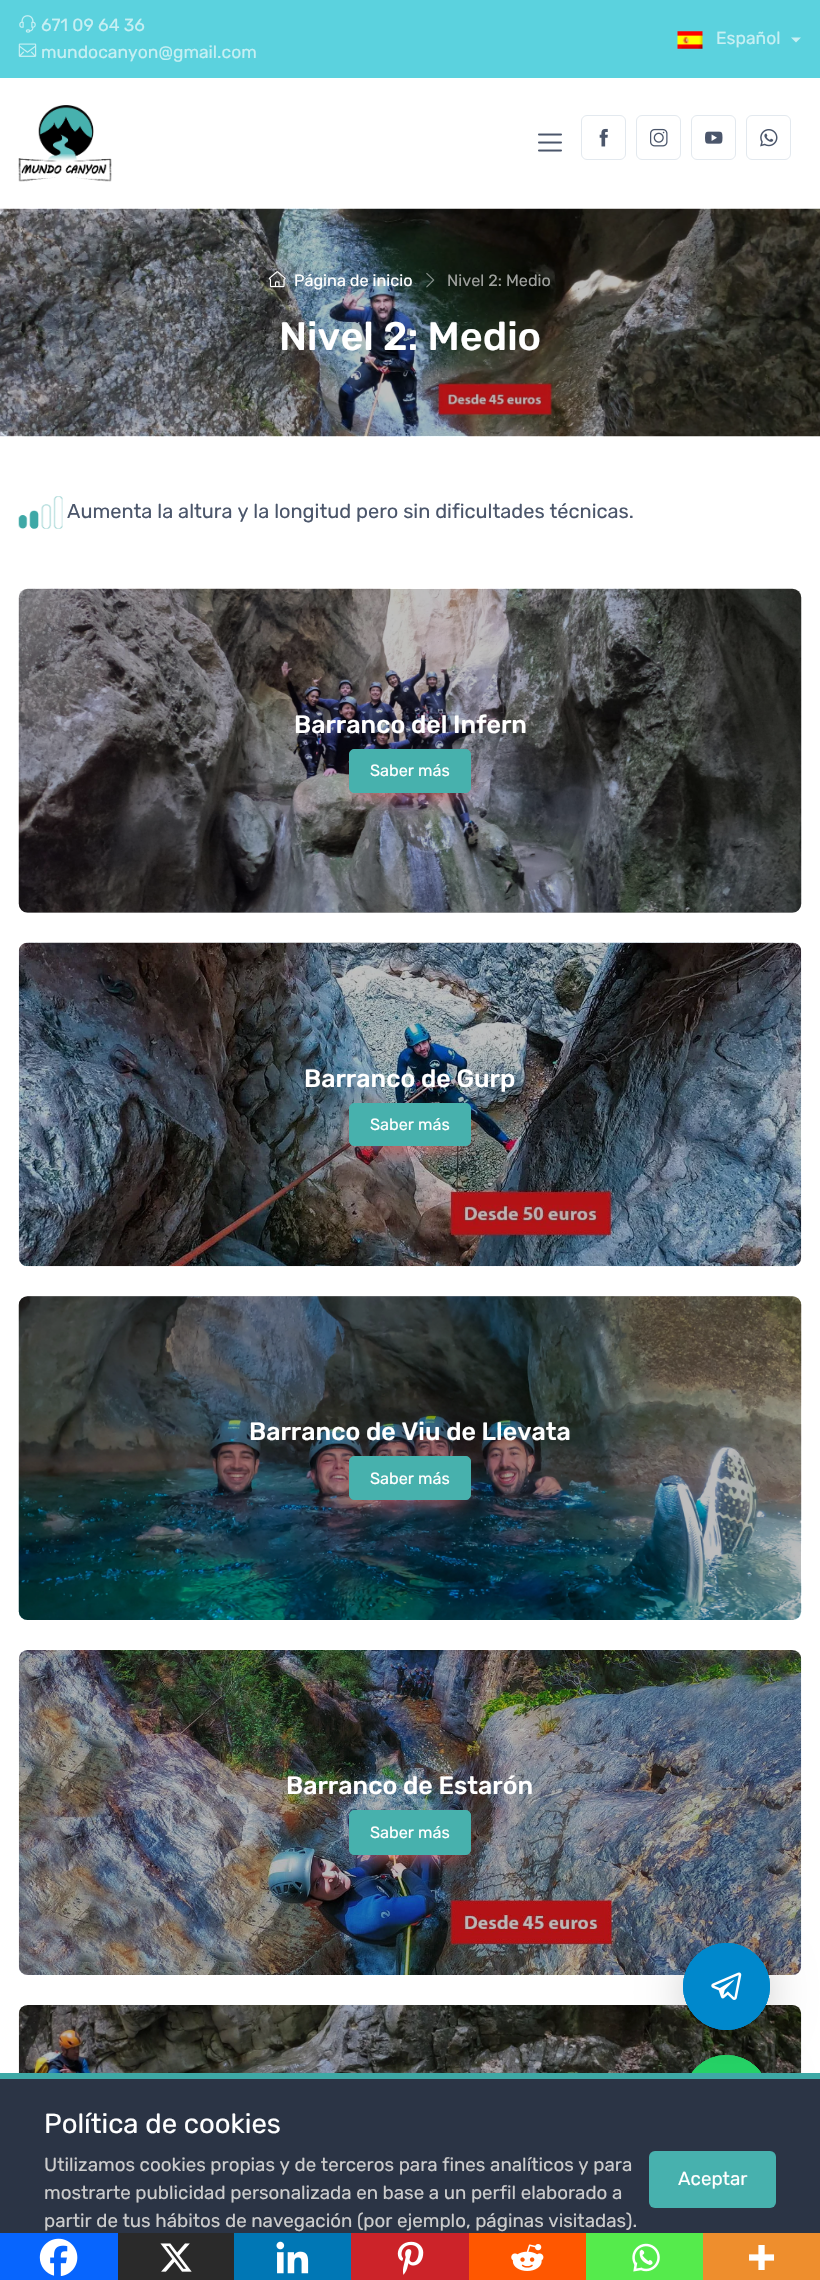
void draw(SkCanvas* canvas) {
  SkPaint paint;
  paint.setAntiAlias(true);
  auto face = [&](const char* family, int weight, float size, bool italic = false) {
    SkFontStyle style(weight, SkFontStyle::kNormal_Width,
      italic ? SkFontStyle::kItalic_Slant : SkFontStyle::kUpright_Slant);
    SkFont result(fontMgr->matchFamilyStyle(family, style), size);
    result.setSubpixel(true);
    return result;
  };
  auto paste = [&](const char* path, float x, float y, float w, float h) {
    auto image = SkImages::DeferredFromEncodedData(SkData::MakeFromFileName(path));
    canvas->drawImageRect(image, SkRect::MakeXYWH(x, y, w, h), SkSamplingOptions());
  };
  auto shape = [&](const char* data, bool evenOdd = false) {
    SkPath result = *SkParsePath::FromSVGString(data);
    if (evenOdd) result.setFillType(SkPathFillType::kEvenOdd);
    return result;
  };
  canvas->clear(0xffffffff);
  paint.setColor(0xff5bd2de);
  canvas->drawRect(SkRect::MakeXYWH(0, 0, 820, 78), paint);
  paste("img/1.png", 19, 15, 17, 18);
  paste("img/2.png", 18, 43, 19, 14);
  paste("img/3.png", 677, 31, 26, 18);
  paint.setColor(0xffc6eff3);
  canvas->drawPath(shape("M791 37.5H801L796 42.5Z"), paint);
  paste("img/4.png", 18, 105, 94, 77);
  paste("img/5.png", 538, 133, 24, 19);
  paint.setStroke(true);
  paint.setStrokeWidth(1);
  paint.setColor(0xffe3e9ef);
  canvas->drawRoundRect(SkRect::MakeXYWH(581.5f, 115.5f, 44, 44), 5.5f, 5.5f, paint);
  paste("img/6.png", 599, 128, 9, 19);
  canvas->drawRoundRect(SkRect::MakeXYWH(636.5f, 115.5f, 44, 44), 5.5f, 5.5f, paint);
  paste("img/7.png", 650, 128, 18, 19);
  canvas->drawRoundRect(SkRect::MakeXYWH(691.5f, 115.5f, 44, 44), 5.5f, 5.5f, paint);
  paste("img/8.png", 705, 131, 18, 13);
  canvas->drawRoundRect(SkRect::MakeXYWH(746.5f, 115.5f, 44, 44), 5.5f, 5.5f, paint);
  paste("img/9.png", 760, 129, 18, 18);
  paste("img/10.png", 0, 208, 820, 229);
  paste("img/11.png", 268, 271, 18, 17);
  paste("img/12.png", 426, 272, 9, 16);
  paste("img/13.png", 18, 496, 45, 33);
  paste("img/14.png", 18, 588, 784, 325);
  paint.setStroke(false);
  paint.setColor(0x40000000);
  canvas->drawRoundRect(SkRect::MakeXYWH(19, 589, 782, 324), 9, 9, paint);
  paint.setColor(0xe6fe696a);
  paint.setMaskFilter(SkMaskFilter::MakeBlur(kNormal_SkBlurStyle, 11));
  canvas->drawRect(SkRect::MakeXYWH(359, 769, 102, 24), paint);
  paint.setMaskFilter(nullptr);
  paint.setColor(0xff47b1ad);
  canvas->drawRoundRect(SkRect::MakeXYWH(349.5f, 749.5f, 121, 43), 4.5f, 4.5f, paint);
  paint.setStroke(true);
  canvas->drawRoundRect(SkRect::MakeXYWH(349.5f, 749.5f, 121, 43), 4.5f, 4.5f, paint);
  paste("img/15.png", 18, 942, 784, 325);
  paint.setStroke(false);
  paint.setColor(0x40000000);
  canvas->drawRoundRect(SkRect::MakeXYWH(19, 943, 782, 323), 9, 9, paint);
  paint.setColor(0xe6fe696a);
  paint.setMaskFilter(SkMaskFilter::MakeBlur(kNormal_SkBlurStyle, 11));
  canvas->drawRect(SkRect::MakeXYWH(359, 1123, 102, 23), paint);
  paint.setMaskFilter(nullptr);
  paint.setColor(0xff47b1ad);
  canvas->drawRoundRect(SkRect::MakeXYWH(349.5f, 1103.5f, 121, 42), 4.5f, 4.5f, paint);
  paint.setStroke(true);
  canvas->drawRoundRect(SkRect::MakeXYWH(349.5f, 1103.5f, 121, 42), 4.5f, 4.5f, paint);
  paste("img/16.png", 18, 1296, 784, 324);
  paint.setStroke(false);
  paint.setColor(0x40000000);
  canvas->drawRoundRect(SkRect::MakeXYWH(19, 1296, 782, 324), 9, 9, paint);
  paint.setColor(0xe6fe696a);
  paint.setMaskFilter(SkMaskFilter::MakeBlur(kNormal_SkBlurStyle, 11));
  canvas->drawRect(SkRect::MakeXYWH(359, 1476, 102, 24), paint);
  paint.setMaskFilter(nullptr);
  paint.setColor(0xff47b1ad);
  canvas->drawRoundRect(SkRect::MakeXYWH(349.5f, 1456.5f, 121, 43), 4.5f, 4.5f, paint);
  paint.setStroke(true);
  canvas->drawRoundRect(SkRect::MakeXYWH(349.5f, 1456.5f, 121, 43), 4.5f, 4.5f, paint);
  paste("img/17.png", 18, 1650, 784, 325);
  paint.setStroke(false);
  paint.setColor(0x40000000);
  canvas->drawRoundRect(SkRect::MakeXYWH(19, 1650, 782, 325), 9, 9, paint);
  paint.setColor(0xe6fe696a);
  paint.setMaskFilter(SkMaskFilter::MakeBlur(kNormal_SkBlurStyle, 11));
  canvas->drawRect(SkRect::MakeXYWH(359, 1830, 102, 25), paint);
  paint.setMaskFilter(nullptr);
  paint.setColor(0xff47b1ad);
  canvas->drawRoundRect(SkRect::MakeXYWH(349.5f, 1810.5f, 121, 44), 4.5f, 4.5f, paint);
  paint.setStroke(true);
  canvas->drawRoundRect(SkRect::MakeXYWH(349.5f, 1810.5f, 121, 44), 4.5f, 4.5f, paint);
  paste("img/18.png", 18, 2005, 784, 68);
  paint.setStroke(false);
  paint.setColor(0x40000000);
  canvas->drawRoundRect(SkRect::MakeXYWH(19, 2005, 782, 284), 9, 9, paint);
  paint.setColor(0x33000000);
  paint.setMaskFilter(SkMaskFilter::MakeBlur(kNormal_SkBlurStyle, 22));
  canvas->drawRoundRect(SkRect::MakeXYWH(683, 2061, 87, 88), 43.5f, 43.5f, paint);
  paint.setMaskFilter(nullptr);
  paint.setColor(0xff25d366);
  canvas->drawRoundRect(SkRect::MakeXYWH(683.5f, 2055.5f, 86, 87), 43, 43, paint);
  paint.setStroke(true);
  canvas->drawRoundRect(SkRect::MakeXYWH(683.5f, 2055.5f, 86, 87), 43, 43, paint);
  canvas->drawRoundRect(SkRect::MakeXYWH(683.5f, 2055.5f, 86, 87), 43, 43, paint);
  canvas->drawRoundRect(SkRect::MakeXYWH(683.5f, 2055.5f, 86, 87), 43, 43, paint);
  paint.setStroke(false);
  paint.setColor(0x33000000);
  paint.setMaskFilter(SkMaskFilter::MakeBlur(kNormal_SkBlurStyle, 22));
  canvas->drawRoundRect(SkRect::MakeXYWH(683, 1949, 87, 87), 43.5f, 43.5f, paint);
  paint.setMaskFilter(nullptr);
  paint.setColor(0xff0088cc);
  canvas->drawCircle(726.5f, 1986.5f, 43, paint);
  paint.setStroke(true);
  canvas->drawCircle(726.5f, 1986.5f, 43, paint);
  canvas->drawCircle(726.5f, 1986.5f, 43, paint);
  canvas->drawCircle(726.5f, 1986.5f, 43, paint);
  paste("img/19.png", 711, 1972, 31, 28);
  paint.setStroke(false);
  paint.setColor(0xff0765fe);
  canvas->drawRect(SkRect::MakeXYWH(0, 2233, 118, 47), paint);
  paste("img/20.png", 39, 2238, 39, 38);
  paint.setColor(0xff2a2a2a);
  canvas->drawRect(SkRect::MakeXYWH(118, 2233, 116, 47), paint);
  paste("img/21.png", 160, 2243, 32, 29);
  paint.setColor(0xff0077b5);
  canvas->drawRect(SkRect::MakeXYWH(234, 2233, 117, 47), paint);
  paste("img/22.png", 276, 2241, 33, 33);
  paint.setColor(0xffcc2329);
  canvas->drawRect(SkRect::MakeXYWH(351, 2233, 118, 47), paint);
  paste("img/23.png", 397, 2241, 27, 34);
  paint.setColor(0xffff5700);
  canvas->drawRect(SkRect::MakeXYWH(469, 2233, 117, 47), paint);
  paste("img/24.png", 511, 2244, 33, 27);
  paint.setColor(0xff55eb4c);
  canvas->drawRect(SkRect::MakeXYWH(586, 2233, 117, 47), paint);
  paste("img/25.png", 632, 2243, 28, 29);
  paint.setColor(0xffee8e2d);
  canvas->drawRect(SkRect::MakeXYWH(703, 2233, 117, 47), paint);
  paste("img/26.png", 749, 2245, 26, 25);
  paint.setColor(0xff2b3445);
  canvas->drawRect(SkRect::MakeXYWH(0, 2079, 820, 154), paint);
  paint.setColor(0xff3ea9a6);
  canvas->drawRect(SkRect::MakeXYWH(0, 2073, 820, 6), paint);
  paint.setColor(0xff47b1ae);
  canvas->drawRoundRect(SkRect::MakeXYWH(649, 2151, 127, 57), 6, 6, paint);
  auto f0 = face("Rubik", 400, 17.5f);
  paint.setColor(0xffc6eff3);
  {
    const struct { const char* s; float x, y; } items[] = {
      {"671 09 64 36", 41, 31},
      {"mundocanyon@gmail.com", 41, 58},
      {"Español", 716, 44},
    };
    for (auto [s, x, y] : items) {
      canvas->drawString(s, x, y, f0, paint);
    }
  }
  auto f1 = face("Rubik", 400, 16.25f);
  paint.setColor(0xffffffff);
  canvas->drawString("Página de inicio", 294, 286, f1, paint);
  paint.setColor(0xff9fa19e);
  canvas->drawString("Nivel 2: Medio", 447, 286, f1, paint);
  auto f2 = face("Rubik", 500, 39.75f);
  paint.setColor(0xffffffff);
  canvas->drawString("Nivel 2: Medio", 279, 350, f2, paint);
  auto f3 = face("Rubik", 400, 20);
  paint.setColor(0xff4b566b);
  canvas->drawString("Aumenta la altura y la longitud pero sin dificultades técnicas.", 67, 518, f3, paint);
  auto f4 = face("Rubik", 500, 25);
  paint.setColor(0xffffffff);
  canvas->drawString("Barranco del Infern", 294, 733, f4, paint);
  canvas->drawString("Saber más", 370, 776, f1, paint);
  canvas->drawString("Barranco de Gurp", 304, 1087, f4, paint);
  canvas->drawString("Saber más", 370, 1130, f1, paint);
  canvas->drawString("Barranco de Viu de Llevata", 249, 1440, f4, paint);
  canvas->drawString("Saber más", 370, 1484, f1, paint);
  canvas->drawString("Barranco de Estarón", 286, 1794, f4, paint);
  canvas->drawString("Saber más", 370, 1838, f1, paint);
  auto f5 = face("Rubik", 400, 27.5f);
  canvas->drawString("Política de cookies", 44, 2133, f5, paint);
  auto f6 = face("Rubik", 400, 18.75f);
  paint.setColor(0xffcccccc);
  {
    const struct { const char* s; float x, y; } items[] = {
      {"Utilizamos cookies propias y de terceros para fines analíticos y para", 44, 2171},
      {"mostrarte publicidad personalizada en base a un perfil elaborado a", 44, 2199},
      {"partir de tus hábitos de navegación (por ejemplo, páginas visitadas).", 44, 2227},
    };
    for (auto [s, x, y] : items) {
      canvas->drawString(s, x, y, f6, paint);
    }
  }
  paint.setColor(0xffffffff);
  canvas->drawString("Aceptar", 678, 2185, f6, paint);
}
